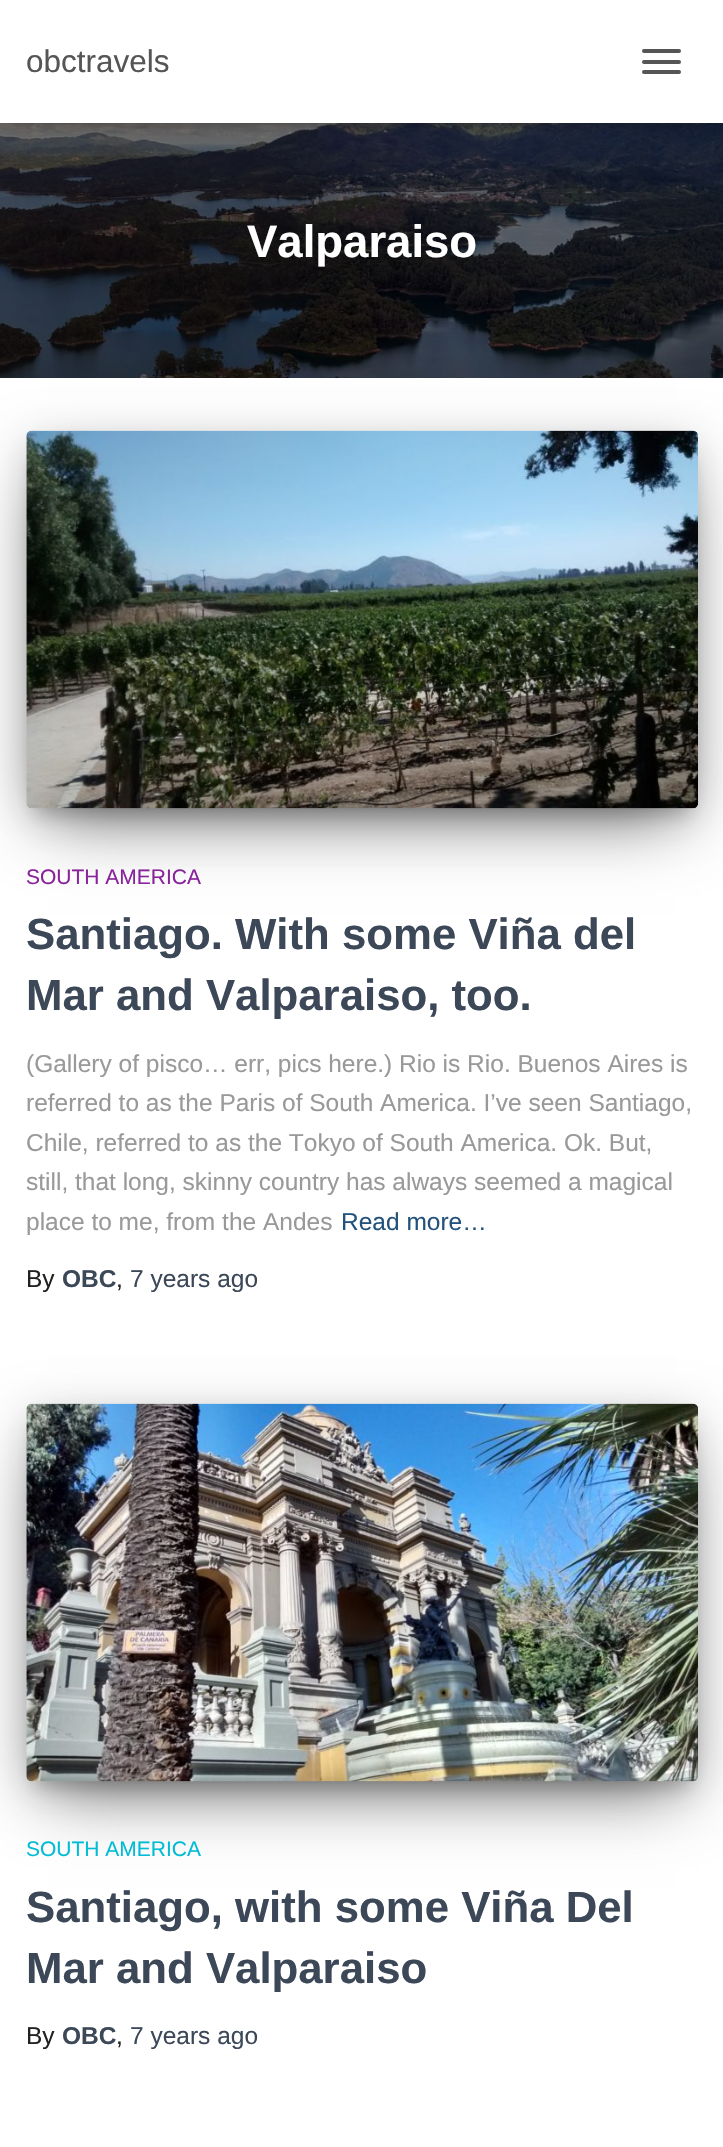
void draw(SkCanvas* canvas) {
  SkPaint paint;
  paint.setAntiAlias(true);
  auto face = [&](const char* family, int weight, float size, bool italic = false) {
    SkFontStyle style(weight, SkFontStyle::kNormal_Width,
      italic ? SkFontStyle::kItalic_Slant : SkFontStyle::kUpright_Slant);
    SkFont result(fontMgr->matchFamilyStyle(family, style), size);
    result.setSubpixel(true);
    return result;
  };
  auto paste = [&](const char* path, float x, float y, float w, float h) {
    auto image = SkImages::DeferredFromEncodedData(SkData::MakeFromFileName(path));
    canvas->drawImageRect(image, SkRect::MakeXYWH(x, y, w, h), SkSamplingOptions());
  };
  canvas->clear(0xffffffff);
  paste("img/1.png", 0, 123, 723, 255);
  paint.setColor(0x1a000000);
  paint.setMaskFilter(SkMaskFilter::MakeBlur(kNormal_SkBlurStyle, 4.5f));
  canvas->drawRect(SkRect::MakeXYWH(4, 11, 717, 115), paint);
  paint.setMaskFilter(nullptr);
  paint.setColor(0x1f000000);
  paint.setMaskFilter(SkMaskFilter::MakeBlur(kNormal_SkBlurStyle, 9));
  canvas->drawRect(SkRect::MakeXYWH(0, 2, 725, 122), paint);
  paint.setMaskFilter(nullptr);
  paint.setColor(0x6b000000);
  paint.setMaskFilter(SkMaskFilter::MakeBlur(kNormal_SkBlurStyle, 9));
  canvas->drawRect(SkRect::MakeXYWH(11, 12, 703, 102), paint);
  paint.setMaskFilter(nullptr);
  paint.setColor(0xffffffff);
  canvas->drawRect(SkRect::MakeXYWH(0, 0, 723, 123), paint);
  paint.setColor(0xff555555);
  canvas->drawRoundRect(SkRect::MakeXYWH(642, 49, 39, 4), 2, 2, paint);
  canvas->drawRoundRect(SkRect::MakeXYWH(642, 60, 39, 4), 2, 2, paint);
  canvas->drawRoundRect(SkRect::MakeXYWH(642, 70, 39, 4), 2, 2, paint);
  paint.setColor(0x1f000000);
  paint.setMaskFilter(SkMaskFilter::MakeBlur(kNormal_SkBlurStyle, 26));
  canvas->drawRect(SkRect::MakeXYWH(-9, 380, 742, 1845), paint);
  paint.setMaskFilter(nullptr);
  paint.setColor(0xffffffff);
  canvas->drawRect(SkRect::MakeXYWH(0, 378, 723, 1769), paint);
  paint.setColor(0x33000000);
  paint.setMaskFilter(SkMaskFilter::MakeBlur(kNormal_SkBlurStyle, 9));
  canvas->drawRect(SkRect::MakeXYWH(35, 453, 655, 361), paint);
  paint.setMaskFilter(nullptr);
  paint.setColor(0x1f000000);
  paint.setMaskFilter(SkMaskFilter::MakeBlur(kNormal_SkBlurStyle, 22));
  canvas->drawRoundRect(SkRect::MakeXYWH(26, 438, 672, 378), 5, 5, paint);
  paint.setMaskFilter(nullptr);
  paint.setColor(0x8f000000);
  paint.setMaskFilter(SkMaskFilter::MakeBlur(kNormal_SkBlurStyle, 33));
  canvas->drawRect(SkRect::MakeXYWH(47, 480, 630, 336), paint);
  paint.setMaskFilter(nullptr);
  paste("img/2.png", 26, 430, 672, 379);
  paint.setColor(0x33000000);
  paint.setMaskFilter(SkMaskFilter::MakeBlur(kNormal_SkBlurStyle, 9));
  canvas->drawRect(SkRect::MakeXYWH(35, 1426, 655, 361), paint);
  paint.setMaskFilter(nullptr);
  paint.setColor(0x1f000000);
  paint.setMaskFilter(SkMaskFilter::MakeBlur(kNormal_SkBlurStyle, 22));
  canvas->drawRoundRect(SkRect::MakeXYWH(26, 1411, 672, 378), 5, 5, paint);
  paint.setMaskFilter(nullptr);
  paint.setColor(0x8f000000);
  paint.setMaskFilter(SkMaskFilter::MakeBlur(kNormal_SkBlurStyle, 33));
  canvas->drawRect(SkRect::MakeXYWH(47, 1453, 630, 336), paint);
  paint.setMaskFilter(nullptr);
  paste("img/3.png", 26, 1403, 672, 379);
  auto f0 = face("Liberation Sans", 400, 31.5f);
  paint.setColor(0xff555555);
  canvas->drawString("obctravels", 26, 72, f0, paint);
  auto f1 = face("Liberation Sans", 700, 45.5f);
  paint.setColor(0xffffffff);
  canvas->drawString("Valparaiso", 247, 257, f1, paint);
  auto f2 = face("Liberation Sans", 400, 21);
  paint.setColor(0xff89229b);
  canvas->drawString("SOUTH AMERICA", 26, 884, f2, paint);
  auto f3 = face("Liberation Sans", 700, 43.75f);
  paint.setColor(0xff3c4858);
  canvas->drawString("Santiago. With some Viña del", 26, 949, f3, paint);
  canvas->drawString("Mar and Valparaiso, too.", 26, 1010, f3, paint);
  auto f4 = face("Liberation Sans", 400, 24.5f);
  paint.setColor(0xff999999);
  {
    const struct { const char* s; float x, y; } items[] = {
      {"(Gallery of pisco… err, pics here.) Rio is Rio. Buenos Aires is", 26, 1072},
      {"referred to as the Paris of South America. I’ve seen Santiago,", 26, 1111},
      {"Chile, referred to as the Tokyo of South America. Ok. But,", 26, 1151},
      {"still, that long, skinny country has always seemed a magical", 26, 1190},
      {"place to me, from the Andes", 26, 1230},
    };
    for (auto [s, x, y] : items) {
      canvas->drawString(s, x, y, f4, paint);
    }
  }
  paint.setColor(0xff23527c);
  canvas->drawString("Read more…", 341, 1230, f4, paint);
  paint.setColor(0xff212121);
  canvas->drawString("By", 26, 1287, f4, paint);
  auto f5 = face("Liberation Sans", 700, 24.5f);
  paint.setColor(0xff3c4858);
  canvas->drawString("OBC", 62, 1287, f5, paint);
  paint.setColor(0xff212121);
  canvas->drawString(",", 116, 1287, f4, paint);
  paint.setColor(0xff3c4858);
  canvas->drawString("7 years ago", 130, 1287, f4, paint);
  paint.setColor(0xff00bcd4);
  canvas->drawString("SOUTH AMERICA", 26, 1856, f2, paint);
  paint.setColor(0xff3c4858);
  canvas->drawString("Santiago, with some Viña Del", 26, 1922, f3, paint);
  canvas->drawString("Mar and Valparaiso", 26, 1983, f3, paint);
  paint.setColor(0xff212121);
  canvas->drawString("By", 26, 2044, f4, paint);
  paint.setColor(0xff3c4858);
  canvas->drawString("OBC", 62, 2044, f5, paint);
  paint.setColor(0xff212121);
  canvas->drawString(",", 116, 2044, f4, paint);
  paint.setColor(0xff3c4858);
  canvas->drawString("7 years ago", 130, 2044, f4, paint);
}
